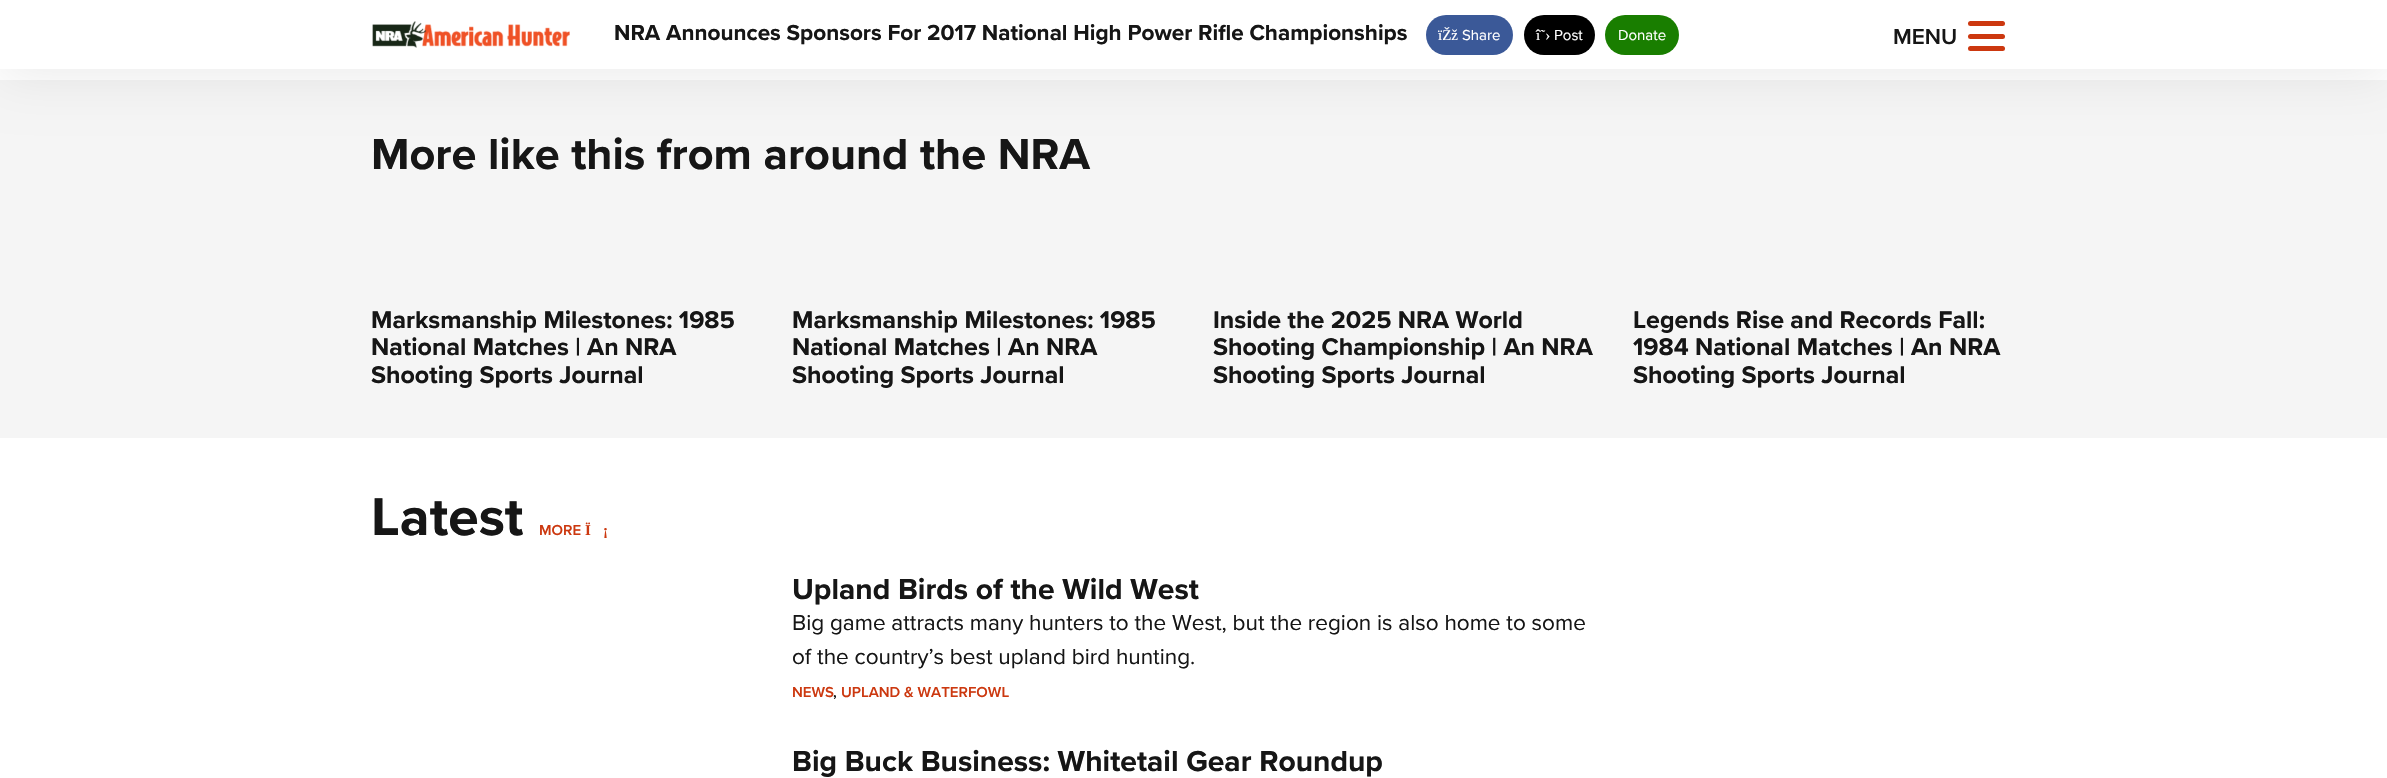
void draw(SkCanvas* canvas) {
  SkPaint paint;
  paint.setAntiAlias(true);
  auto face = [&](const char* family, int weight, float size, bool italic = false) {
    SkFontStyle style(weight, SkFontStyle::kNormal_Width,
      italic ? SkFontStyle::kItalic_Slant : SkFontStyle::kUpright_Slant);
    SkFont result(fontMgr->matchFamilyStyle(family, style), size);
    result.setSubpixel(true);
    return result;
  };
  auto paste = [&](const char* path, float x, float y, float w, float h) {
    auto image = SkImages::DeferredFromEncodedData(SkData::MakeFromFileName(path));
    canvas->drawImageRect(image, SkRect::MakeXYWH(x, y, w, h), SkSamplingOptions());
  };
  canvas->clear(0xffffffff);
  paint.setColor(0xfff5f5f5);
  canvas->drawRect(SkRect::MakeXYWH(0, 80, 2387, 358), paint);
  paint.setColor(0x14000000);
  paint.setMaskFilter(SkMaskFilter::MakeBlur(kNormal_SkBlurStyle, 25));
  canvas->drawRect(SkRect::MakeXYWH(0, 8, 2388, 68), paint);
  paint.setMaskFilter(nullptr);
  paint.setColor(0xffffffff);
  canvas->drawRect(SkRect::MakeXYWH(0, 0, 2387, 69), paint);
  paste("img/1.png", 372, 21, 198, 27);
  paint.setColor(0xff3b5998);
  canvas->drawRoundRect(SkRect::MakeXYWH(1426, 15, 87, 40), 20, 20, paint);
  paint.setColor(0xff000000);
  canvas->drawRoundRect(SkRect::MakeXYWH(1524, 15, 71, 40), 20, 20, paint);
  paint.setColor(0xff197e00);
  canvas->drawRoundRect(SkRect::MakeXYWH(1605, 15, 74, 40), 20, 20, paint);
  paint.setColor(0xffcc380f);
  canvas->drawRoundRect(SkRect::MakeXYWH(1968, 34, 37, 5), 2.5f, 2.5f, paint);
  canvas->drawRoundRect(SkRect::MakeXYWH(1968, 21, 37, 5), 2.5f, 2.5f, paint);
  canvas->drawRoundRect(SkRect::MakeXYWH(1968, 46, 37, 5), 2.5f, 2.5f, paint);
  auto f0 = face("Proxima Nova", 700, 22.5f);
  paint.setColor(0xff161616);
  canvas->drawString("NRA Announces Sponsors For 2017 National High Power Rifle Championships", 614, 40, f0, paint);
  auto f1 = face("Liberation Serif", 400, 15);
  paint.setColor(0xffffffff);
  canvas->drawString("ïŽž", 1438, 40, f1, paint);
  auto f2 = face("Proxima Nova", 400, 15);
  canvas->drawString("Share", 1462, 40, f2, paint);
  canvas->drawString("î˜›", 1536, 40, f1, paint);
  canvas->drawString("Post", 1554, 40, f2, paint);
  canvas->drawString("Donate", 1618, 40, f2, paint);
  auto f3 = face("Proxima Nova", 600, 22.5f);
  paint.setColor(0xff161616);
  canvas->drawString("MENU", 1893, 44, f3, paint);
  auto f4 = face("Proxima Nova", 700, 45);
  canvas->drawString("More like this from around the NRA", 371, 169, f4, paint);
  auto f5 = face("Proxima Nova", 700, 25);
  {
    const struct { const char* s; float x, y; } items[] = {
      {"Marksmanship Milestones: 1985", 371, 328},
      {"National Matches | An NRA", 371, 355},
      {"Shooting Sports Journal", 371, 383},
      {"Marksmanship Milestones: 1985", 792, 328},
      {"National Matches | An NRA", 792, 355},
      {"Shooting Sports Journal", 792, 383},
      {"Inside the 2025 NRA World", 1213, 328},
      {"Shooting Championship | An NRA", 1213, 355},
      {"Shooting Sports Journal", 1213, 383},
      {"Legends Rise and Records Fall:", 1633, 328},
      {"1984 National Matches | An NRA", 1633, 355},
      {"Shooting Sports Journal", 1633, 383},
    };
    for (auto [s, x, y] : items) {
      canvas->drawString(s, x, y, f5, paint);
    }
  }
  auto f6 = face("Proxima Nova", 700, 55);
  canvas->drawString("Latest", 371, 535, f6, paint);
  auto f7 = face("Proxima Nova", 600, 15);
  paint.setColor(0xffcc380f);
  canvas->drawString("MORE", 539, 535, f7, paint);
  auto f8 = face("Liberation Serif", 700, 15);
  canvas->drawString("Ï", 585, 535, f8, paint);
  canvas->drawString("¡", 603, 535, f8, paint);
  auto f9 = face("Proxima Nova", 700, 30);
  paint.setColor(0xff161616);
  canvas->drawString("Upland Birds of the Wild West", 792, 599, f9, paint);
  auto f10 = face("Proxima Nova", 400, 22.5f);
  canvas->drawString("Big game attracts many hunters to the West, but the region is also home to some", 792, 630, f10, paint);
  canvas->drawString("of the country’s best upland bird hunting.", 792, 664, f10, paint);
  paint.setColor(0xffcc380f);
  canvas->drawString("NEWS", 792, 697, f7, paint);
  paint.setColor(0xff161616);
  canvas->drawString(",", 833, 697, f7, paint);
  paint.setColor(0xffcc380f);
  canvas->drawString("UPLAND & WATERFOWL", 841, 697, f7, paint);
  paint.setColor(0xff161616);
  canvas->drawString("Big Buck Business: Whitetail Gear Roundup", 792, 771, f9, paint);
}
